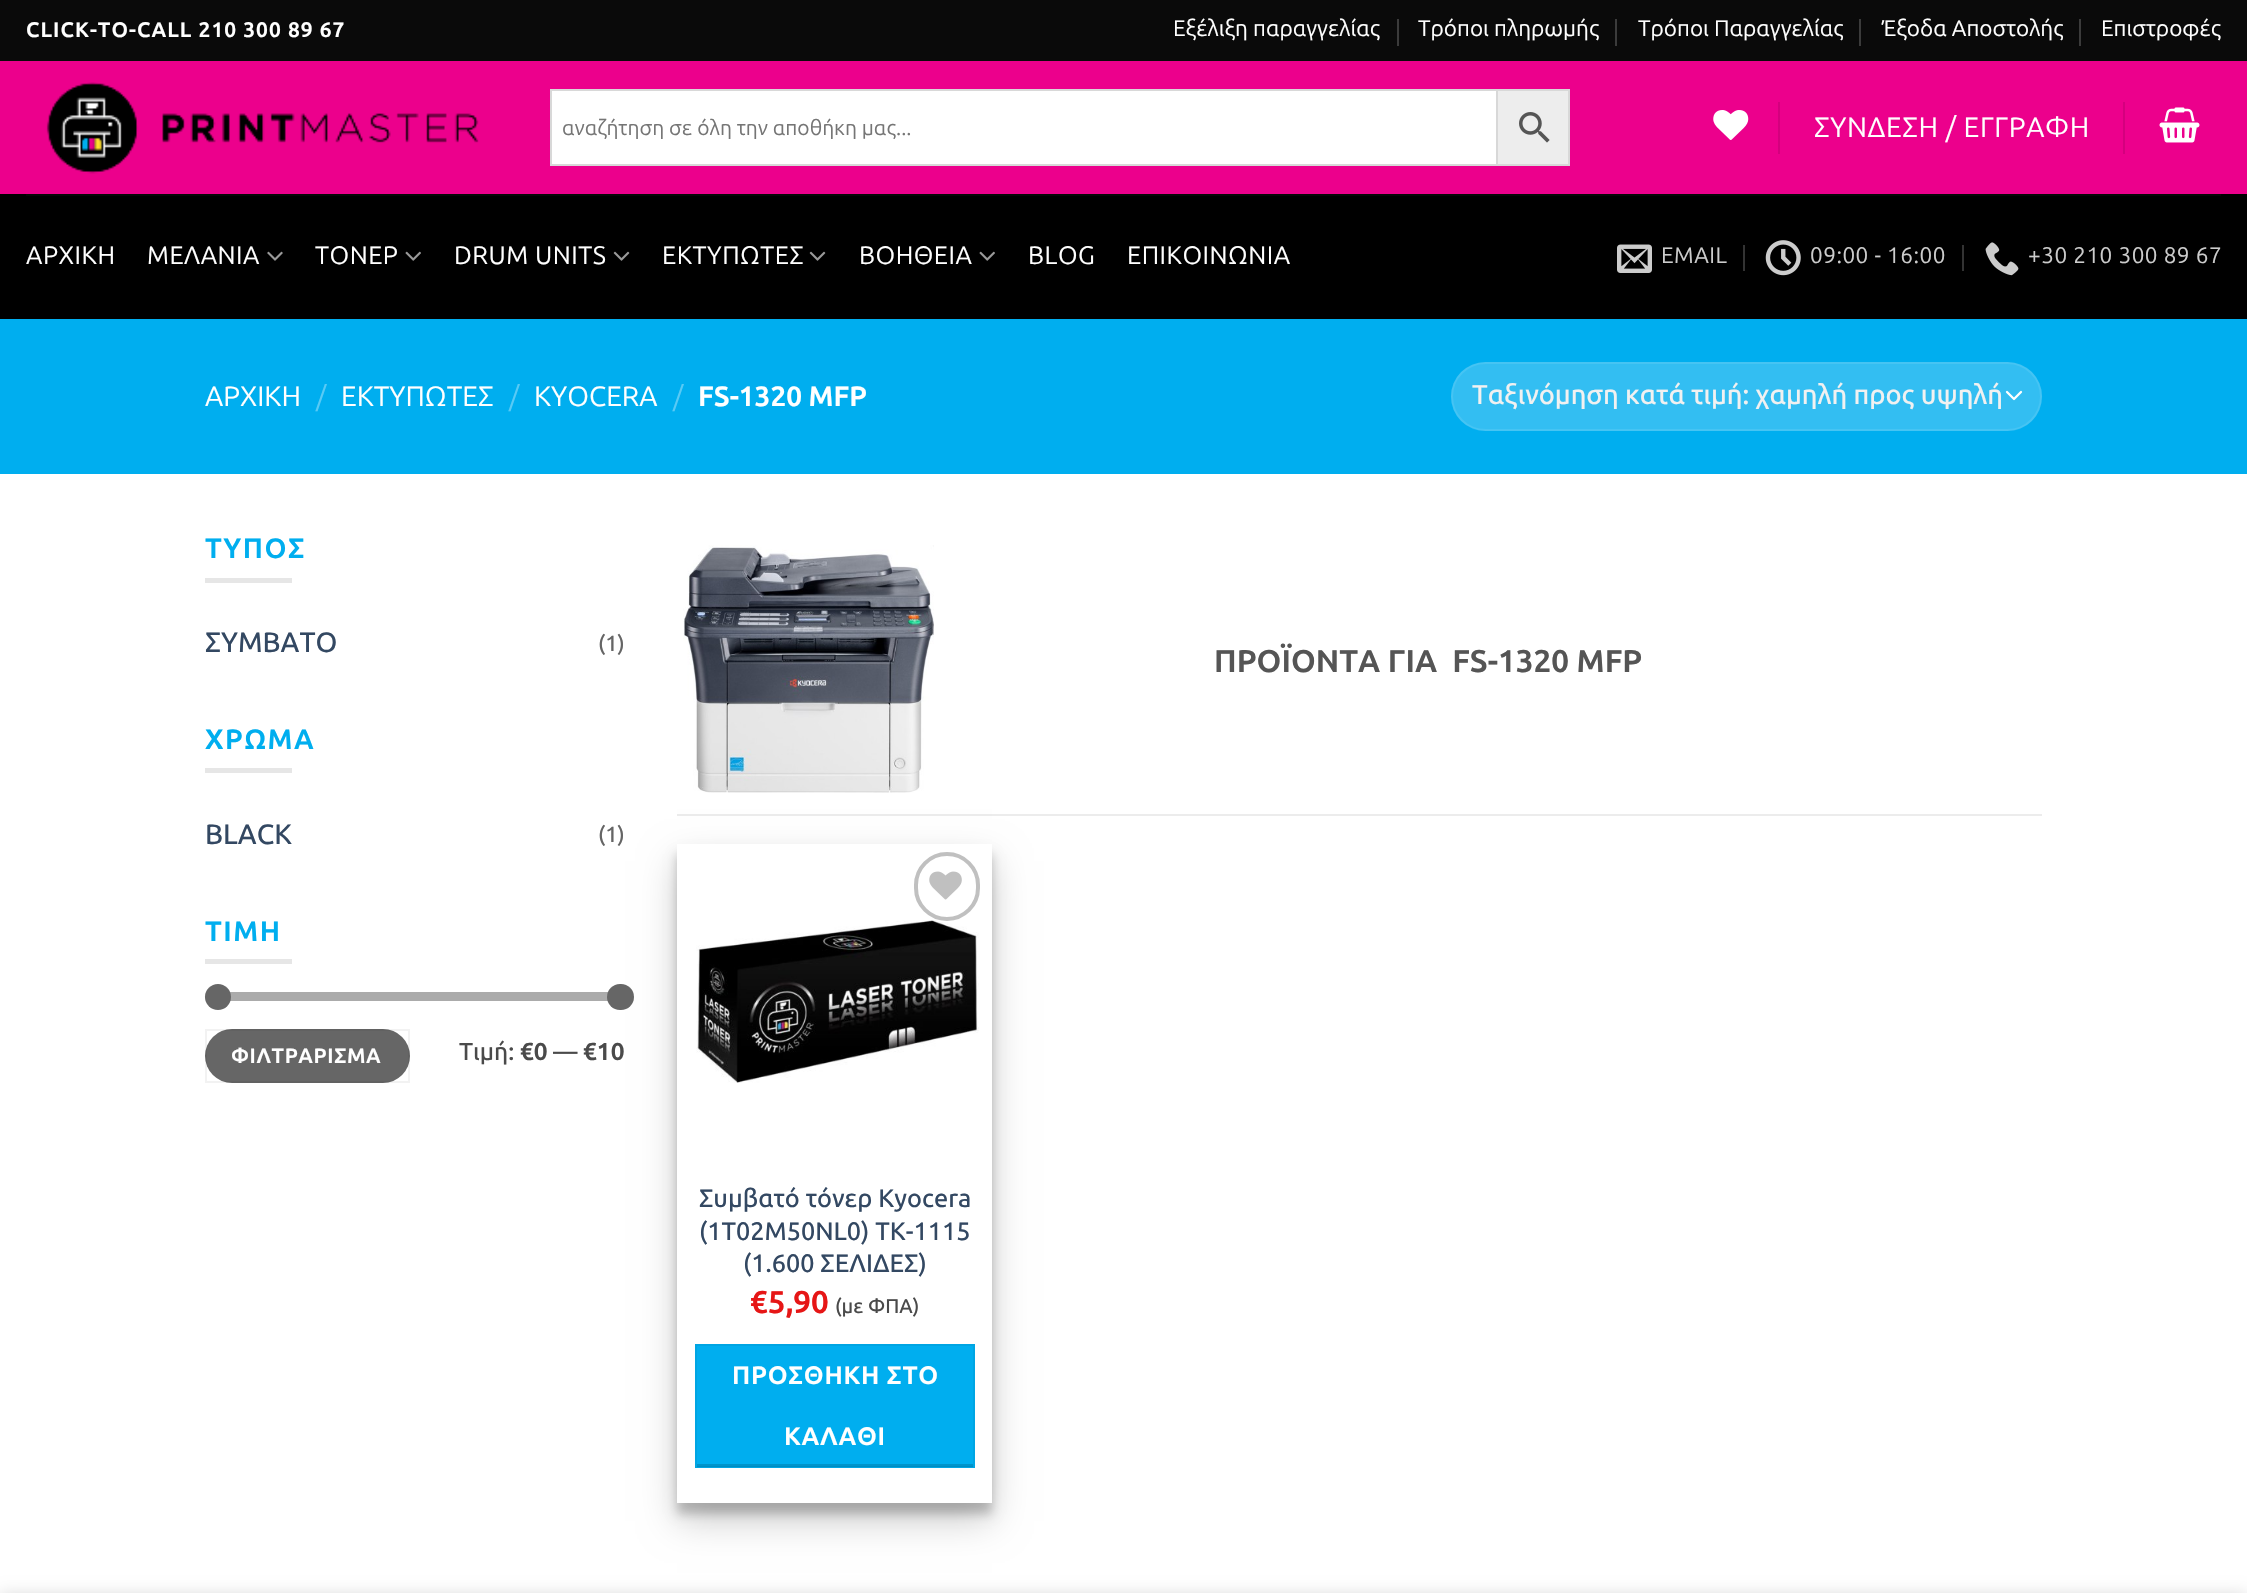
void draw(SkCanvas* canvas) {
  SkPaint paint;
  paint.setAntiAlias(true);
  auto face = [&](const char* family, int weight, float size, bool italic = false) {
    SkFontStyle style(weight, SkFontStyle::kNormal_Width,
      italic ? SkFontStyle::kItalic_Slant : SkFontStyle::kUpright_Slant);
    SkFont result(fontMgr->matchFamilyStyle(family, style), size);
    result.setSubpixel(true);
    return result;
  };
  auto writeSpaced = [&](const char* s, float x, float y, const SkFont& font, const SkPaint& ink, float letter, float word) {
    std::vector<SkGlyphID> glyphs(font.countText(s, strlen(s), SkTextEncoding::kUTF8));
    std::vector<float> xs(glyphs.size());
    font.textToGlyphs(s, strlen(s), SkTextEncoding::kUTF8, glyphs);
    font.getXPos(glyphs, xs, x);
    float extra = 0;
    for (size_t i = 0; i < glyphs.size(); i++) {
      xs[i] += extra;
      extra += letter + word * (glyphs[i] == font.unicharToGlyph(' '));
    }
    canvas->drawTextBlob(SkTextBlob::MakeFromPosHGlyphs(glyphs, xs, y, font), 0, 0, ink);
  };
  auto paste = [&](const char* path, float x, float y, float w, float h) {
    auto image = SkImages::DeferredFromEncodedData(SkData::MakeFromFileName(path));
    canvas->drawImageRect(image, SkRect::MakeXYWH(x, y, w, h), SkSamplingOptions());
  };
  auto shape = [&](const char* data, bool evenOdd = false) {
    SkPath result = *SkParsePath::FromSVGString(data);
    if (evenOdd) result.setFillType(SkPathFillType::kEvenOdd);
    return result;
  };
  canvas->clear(0xff00aeef);
  {
    const struct { float x, y, w, h; SkColor color; } items[] = {
      {0, 0, 2247, 61, 0xff0a0a0a},
      {1397, 19, 2, 27, 0xff3b3b3b},
      {1615, 19, 2, 27, 0xff3b3b3b},
      {1859, 19, 2, 27, 0xff3b3b3b},
      {2079, 19, 2, 27, 0xff3b3b3b},
      {0, 61, 2247, 133, 0xffec008c},
    };
    for (auto [x, y, w, h, color] : items) {
      paint.setColor(color);
      canvas->drawRect(SkRect::MakeXYWH(x, y, w, h), paint);
    }
  }
  paste("img/1.png", 46, 82, 433, 92);
  paint.setColor(0xffededed);
  canvas->drawRect(SkRect::MakeXYWH(1497, 90, 72, 75), paint);
  paint.setStroke(true);
  paint.setStrokeWidth(2);
  paint.setColor(0xffd8d8d8);
  canvas->drawRect(SkRect::MakeXYWH(1497, 90, 72, 75), paint);
  paint.setStroke(false);
  paint.setColor(0xffffffff);
  canvas->drawRect(SkRect::MakeXYWH(551, 90, 946, 75), paint);
  paint.setStroke(true);
  paint.setColor(0xffd8d8d8);
  canvas->drawRect(SkRect::MakeXYWH(551, 90, 946, 75), paint);
  paste("img/2.png", 1519, 112, 31, 31);
  paste("img/3.png", 1713, 110, 36, 30);
  paint.setStroke(false);
  paint.setColor(0xffd4007e);
  canvas->drawRect(SkRect::MakeXYWH(1778, 102, 2, 52), paint);
  canvas->drawRect(SkRect::MakeXYWH(2123, 102, 2, 52), paint);
  paste("img/4.png", 2159, 107, 41, 36);
  paint.setColor(0xff000000);
  canvas->drawRect(SkRect::MakeXYWH(0, 194, 2247, 125), paint);
  paint.setColor(0xff070707);
  canvas->drawRect(SkRect::MakeXYWH(26, 194, 2195, 2), paint);
  paste("img/5.png", 267, 251, 16, 10);
  paste("img/6.png", 405, 251, 16, 10);
  paste("img/7.png", 613, 251, 17, 10);
  paste("img/7.png", 809, 251, 17, 10);
  paste("img/6.png", 979, 251, 16, 10);
  paste("img/8.png", 1617, 244, 35, 29);
  paint.setColor(0xff333333);
  canvas->drawRect(SkRect::MakeXYWH(1743, 245, 2, 26), paint);
  paste("img/9.png", 1765, 240, 36, 36);
  canvas->drawRect(SkRect::MakeXYWH(1962, 245, 2, 26), paint);
  paste("img/10.png", 1985, 242, 34, 34);
  paint.setColor(0xff33bef2);
  canvas->drawRoundRect(SkRect::MakeXYWH(1451, 362, 591, 69), 34.5f, 34.5f, paint);
  paint.setStroke(true);
  paint.setStrokeWidth(2.3f);
  paint.setStrokeCap(SkPaint::kRound_Cap);
  paint.setStrokeJoin(SkPaint::kRound_Join);
  paint.setColor(0xffffffff);
  canvas->drawPath(shape("M2007 392L2014 399L2021 392"), paint);
  paint.setStrokeWidth(2);
  paint.setStrokeCap(SkPaint::kButt_Cap);
  paint.setStrokeJoin(SkPaint::kMiter_Join);
  paint.setColor(0x17ffffff);
  canvas->drawRoundRect(SkRect::MakeXYWH(1452, 363, 589, 67), 33.5f, 33.5f, paint);
  paint.setStroke(false);
  {
    const struct { float x, y, w, h; SkColor color; } items[] = {
      {0, 474, 2247, 1119, 0xffffffff},
      {205, 578, 87, 5, 0xffe6e6e6},
      {205, 768, 87, 5, 0xffe6e6e6},
      {205, 959, 87, 5, 0xffe6e6e6},
    };
    for (auto [x, y, w, h, color] : items) {
      paint.setColor(color);
      canvas->drawRect(SkRect::MakeXYWH(x, y, w, h), paint);
    }
  }
  paint.setColor(0xfff1f1f1);
  canvas->drawRoundRect(SkRect::MakeXYWH(205, 992, 420, 9), 4.5f, 4.5f, paint);
  paint.setColor(0xffececec);
  canvas->drawRect(SkRect::MakeXYWH(677, 814, 1365, 2), paint);
  paint.setColor(0x30000000);
  paint.setMaskFilter(SkMaskFilter::MakeBlur(kNormal_SkBlurStyle, 17.5f));
  canvas->drawRect(SkRect::MakeXYWH(677, 861, 315, 660), paint);
  paint.setMaskFilter(nullptr);
  paint.setColor(0x80666666);
  canvas->drawRoundRect(SkRect::MakeXYWH(205, 992, 420, 9), 4.5f, 4.5f, paint);
  paint.setColor(0xff666666);
  canvas->drawCircle(218, 997, 13, paint);
  canvas->drawRoundRect(SkRect::MakeXYWH(607, 984, 27, 26), 13, 13, paint);
  canvas->drawRoundRect(SkRect::MakeXYWH(205, 1029, 205, 54), 27, 27, paint);
  paint.setStroke(true);
  paint.setColor(0x0d000000);
  canvas->drawRect(SkRect::MakeXYWH(206, 1030, 203, 52), paint);
  paste("img/11.png", 683, 545, 251, 248);
  paint.setStroke(false);
  paint.setColor(0x38000000);
  paint.setMaskFilter(SkMaskFilter::MakeBlur(kNormal_SkBlurStyle, 5));
  canvas->drawRect(SkRect::MakeXYWH(677, 854, 315, 660), paint);
  paint.setMaskFilter(nullptr);
  paint.setColor(0xffffffff);
  canvas->drawRect(SkRect::MakeXYWH(677, 844, 315, 659), paint);
  paste("img/13.png", 696, 920, 283, 163);
  paint.setStroke(true);
  paint.setStrokeWidth(4);
  paint.setColor(0xffc0c0c0);
  canvas->drawRoundRect(SkRect::MakeXYWH(916, 854, 62, 65), 31, 31, paint);
  paste("img/12.png", 929, 871, 33, 29);
  paint.setStroke(false);
  paint.setColor(0xff00aeef);
  canvas->drawRect(SkRect::MakeXYWH(696, 1345, 278, 122), paint);
  paint.setStroke(true);
  paint.setStrokeWidth(2);
  paint.setColor(0xff00a5e3);
  canvas->drawRect(SkRect::MakeXYWH(696, 1345, 278, 122), paint);
  canvas->save();
  canvas->clipRect(SkRect::MakeXYWH(697, 1346, 276, 121));
  paint.setStroke(false);
  paint.setColor(0x26000000);
  canvas->drawPath(shape("M523 1172H1146V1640H523ZM696 1343H973V1464H696Z", true), paint);
  canvas->restore();
  paint.setColor(0x24000000);
  paint.setMaskFilter(SkMaskFilter::MakeBlur(kNormal_SkBlurStyle, 8));
  canvas->drawRect(SkRect::MakeXYWH(0, 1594, 2247, 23), paint);
  paint.setMaskFilter(nullptr);
  auto f0 = face("Ubuntu Sans", 700, 21);
  paint.setColor(0xffffffff);
  writeSpaced("CLICK-TO-CALL 210 300 89 67", 26, 37, f0, paint, 1.05f, 0);
  auto f1 = face("Ubuntu Sans", 400, 22.5f);
  {
    const struct { const char* s; float x, y; } items[] = {
      {"Εξέλιξη παραγγελίας", 1173, 36},
      {"Τρόποι πληρωμής", 1418, 36},
      {"Τρόποι Παραγγελίας", 1638, 36},
      {"Έξοδα Αποστολής", 1882, 36},
      {"Επιστροφές", 2101, 36},
    };
    for (auto [s, x, y] : items) {
      canvas->drawString(s, x, y, f1, paint);
    }
  }
  auto f2 = face("Ubuntu Sans", 400, 21);
  paint.setColor(0xff757575);
  canvas->drawString("αναζήτηση σε όλη την αποθήκη μας...", 562, 135, f2, paint);
  auto f3 = face("Ubuntu Sans", 400, 28);
  paint.setColor(0xffffffff);
  writeSpaced("ΣΥΝΔΕΣΗ / ΕΓΓΡΑΦΗ", 1814, 137, f3, paint, 0.6f, 0);
  auto f4 = face("Ubuntu Sans", 400, 25.25f);
  {
    const struct { const char* s; float x, y; } items[] = {
      {"ΑΡΧΙΚΗ", 26, 264},
      {"ΜΕΛΑΝΙΑ", 147, 264},
      {"ΤΟΝΕΡ", 315, 264},
      {"DRUM UNITS", 454, 264},
      {"ΕΚΤΥΠΩΤΕΣ", 662, 264},
      {"ΒΟΗΘΕΙΑ", 859, 264},
      {"BLOG", 1028, 264},
      {"ΕΠΙΚΟΙΝΩΝΙΑ", 1127, 264},
    };
    for (auto [s, x, y] : items) {
      writeSpaced(s, x, y, f4, paint, 0.5f, 0);
    }
  }
  paint.setColor(0xffcccccc);
  {
    const struct { const char* s; float x, y; } items[] = {
      {"EMAIL", 1661, 263},
      {"09:00 - 16:00", 1810, 263},
      {"+30 210 300 89 67", 2028, 263},
    };
    for (auto [s, x, y] : items) {
      writeSpaced(s, x, y, f1, paint, 0.5f, 0);
    }
  }
  paint.setColor(0xffffffff);
  canvas->drawString("ΑΡΧΙΚΗ", 205, 406, f3, paint);
  paint.setColor(0xff59caf5);
  canvas->drawString("/", 316, 406, f3, paint);
  paint.setColor(0xffffffff);
  canvas->drawString("ΕΚΤΥΠΩΤΕΣ", 341, 406, f3, paint);
  paint.setColor(0xff59caf5);
  canvas->drawString("/", 509, 406, f3, paint);
  paint.setColor(0xffffffff);
  canvas->drawString("KYOCERA", 534, 406, f3, paint);
  paint.setColor(0xff59caf5);
  canvas->drawString("/", 673, 406, f3, paint);
  auto f5 = face("Ubuntu Sans", 700, 28);
  paint.setColor(0xffffffff);
  canvas->drawString("FS-1320 MFP", 698, 406, f5, paint);
  auto f6 = face("Ubuntu Sans", 500, 27.2f);
  paint.setColor(0xfff1f1f1);
  canvas->drawString("Ταξινόμηση κατά τιμή: χαμηλή προς υψηλή", 1472, 404, f6, paint);
  paint.setColor(0xff00aeef);
  writeSpaced("ΤΥΠΟΣ", 205, 558, f5, paint, 1.5f, 0);
  auto f7 = face("Ubuntu Sans", 500, 28);
  paint.setColor(0xff334862);
  canvas->drawString("ΣΥΜΒΑΤΟ", 205, 652, f7, paint);
  auto f8 = face("Ubuntu Sans", 500, 22);
  paint.setColor(0xff656565);
  canvas->drawString("(1)", 598, 651, f8, paint);
  paint.setColor(0xff00aeef);
  writeSpaced("ΧΡΩΜΑ", 205, 749, f5, paint, 1.5f, 0);
  paint.setColor(0xff334862);
  canvas->drawString("BLACK", 205, 844, f7, paint);
  paint.setColor(0xff656565);
  canvas->drawString("(1)", 598, 842, f8, paint);
  paint.setColor(0xff00aeef);
  writeSpaced("ΤΙΜΗ", 205, 941, f5, paint, 1.5f, 0);
  auto f9 = face("Ubuntu Sans", 700, 20.75f);
  paint.setColor(0xffffffff);
  writeSpaced("ΦΙΛΤΡΑΡΙΣΜΑ", 231, 1063, f9, paint, 0.6f, 0);
  auto f10 = face("Ubuntu Sans", 500, 24.5f);
  paint.setColor(0xff4a4a4a);
  canvas->drawString("Τιμή:", 459, 1060, f10, paint);
  auto f11 = face("Ubuntu Sans", 700, 24.5f);
  canvas->drawString("€0", 520, 1060, f11, paint);
  canvas->drawString("—", 553, 1060, f10, paint);
  canvas->drawString("€10", 583, 1060, f11, paint);
  auto f12 = face("Ubuntu Sans", 700, 31.5f);
  paint.setColor(0xff555555);
  canvas->drawString("ΠΡΟΪΟΝΤΑ ΓΙΑ  FS-1320 MFP", 1214, 672, f12, paint);
  auto f13 = face("Ubuntu Sans", 500, 25.25f);
  paint.setColor(0xff334862);
  {
    const struct { const char* s; float x, y; } items[] = {
      {"Συμβατό τόνερ Kyocera", 699, 1207},
      {"(1T02M50NL0) TK-1115", 699, 1240},
      {"(1.600 ΣΕΛΙΔΕΣ)", 743, 1272},
    };
    for (auto [s, x, y] : items) {
      canvas->drawString(s, x, y, f13, paint);
    }
  }
  paint.setColor(0xffe61616);
  canvas->drawString("€5,90", 750, 1313, f12, paint);
  auto f14 = face("Ubuntu Sans", 500, 20);
  paint.setColor(0xff4a4a4a);
  canvas->drawString("(με ΦΠΑ)", 835, 1313, f14, paint);
  auto f15 = face("Ubuntu Sans", 700, 25.25f);
  paint.setColor(0xffffffff);
  writeSpaced("ΠΡΟΣΘΗΚΗ ΣΤΟ", 732, 1384, f15, paint, 0.75f, 0);
  writeSpaced("ΚΑΛΑΘΙ", 784, 1445, f15, paint, 0.75f, 0);
}
